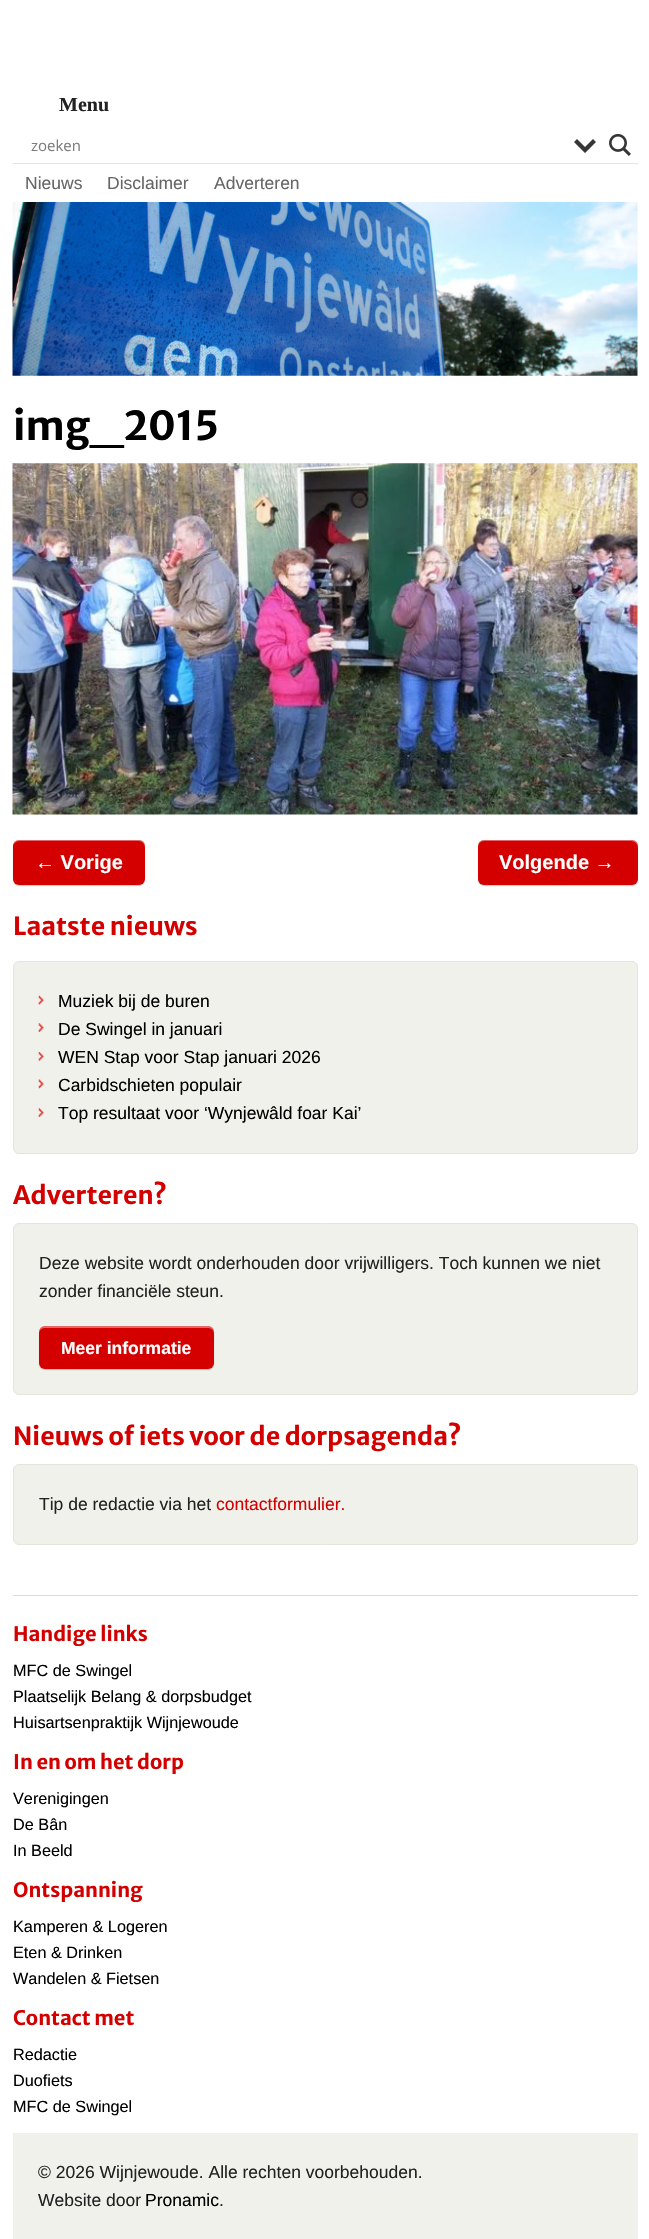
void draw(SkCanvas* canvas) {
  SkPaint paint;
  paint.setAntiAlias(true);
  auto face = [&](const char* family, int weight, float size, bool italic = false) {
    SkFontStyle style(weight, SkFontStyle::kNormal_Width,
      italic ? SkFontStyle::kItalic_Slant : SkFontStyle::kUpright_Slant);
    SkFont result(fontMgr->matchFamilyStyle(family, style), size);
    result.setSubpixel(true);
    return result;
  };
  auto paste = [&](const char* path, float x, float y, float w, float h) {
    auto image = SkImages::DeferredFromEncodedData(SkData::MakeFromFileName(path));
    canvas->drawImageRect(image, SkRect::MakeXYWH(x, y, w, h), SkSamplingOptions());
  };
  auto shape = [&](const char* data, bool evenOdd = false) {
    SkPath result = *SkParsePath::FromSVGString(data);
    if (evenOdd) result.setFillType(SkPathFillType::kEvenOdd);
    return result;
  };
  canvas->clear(0xffffffff);
  paint.setColor(0xffe4e4e4);
  canvas->drawPath(shape("M13 162V164H638V129V162Z"), paint);
  paint.setColor(0xffffffff);
  canvas->drawRect(SkRect::MakeXYWH(13, 162, 625, 1), paint);
  paint.setColor(0xff363636);
  canvas->drawPath(shape("M593 139L596 142L585 153L574 142L577 139L585 147Z"), paint);
  paste("img/1.png", 609, 134, 22, 22);
  paste("img/2.png", 12, 202, 626, 174);
  paste("img/3.png", 12, 463, 626, 352);
  paint.setColor(0x33000000);
  paint.setMaskFilter(SkMaskFilter::MakeBlur(kNormal_SkBlurStyle, 0.5f));
  canvas->drawRoundRect(SkRect::MakeXYWH(13, 841, 132, 45), 6, 6, paint);
  paint.setMaskFilter(nullptr);
  paint.setColor(0xffd40000);
  canvas->drawRoundRect(SkRect::MakeXYWH(13, 840, 132, 45), 6, 6, paint);
  paint.setColor(0x66ffffff);
  canvas->drawPath(shape("M19 841H139C142 841 145 844 145 848V846C145 843 142 840 139 840H19C17 840 14 841 14 844C15 842 17 841 19 841Z"), paint);
  paint.setColor(0x33000000);
  paint.setMaskFilter(SkMaskFilter::MakeBlur(kNormal_SkBlurStyle, 0.5f));
  canvas->drawRoundRect(SkRect::MakeXYWH(478, 841, 160, 45), 6, 6, paint);
  paint.setMaskFilter(nullptr);
  paint.setColor(0xffd40000);
  canvas->drawRoundRect(SkRect::MakeXYWH(478, 840, 160, 45), 6, 6, paint);
  paint.setColor(0x66ffffff);
  canvas->drawPath(shape("M484 841H631C635 841 638 844 638 848V846C638 843 635 840 632 840H484C481 840 478 843 478 846V848C478 844 480 841 484 841Z"), paint);
  paint.setColor(0xfff1f1eb);
  canvas->drawRoundRect(SkRect::MakeXYWH(13.5f, 961.5f, 624, 192), 5.5f, 5.5f, paint);
  paint.setStroke(true);
  paint.setStrokeWidth(1);
  paint.setColor(0xffe5e5d9);
  canvas->drawRoundRect(SkRect::MakeXYWH(13.5f, 961.5f, 624, 192), 5.5f, 5.5f, paint);
  paste("img/4.png", 38, 995, 6, 10);
  paste("img/5.png", 38, 1023, 6, 9);
  paste("img/6.png", 38, 1052, 6, 9);
  paste("img/7.png", 38, 1079, 6, 10);
  paste("img/5.png", 38, 1108, 6, 9);
  paint.setStroke(false);
  paint.setColor(0xfff1f1eb);
  canvas->drawRoundRect(SkRect::MakeXYWH(13.5f, 1223.5f, 624, 171), 5.5f, 5.5f, paint);
  paint.setStroke(true);
  paint.setColor(0xffe5e5d9);
  canvas->drawRoundRect(SkRect::MakeXYWH(13.5f, 1223.5f, 624, 171), 5.5f, 5.5f, paint);
  paint.setStroke(false);
  paint.setColor(0x33000000);
  paint.setMaskFilter(SkMaskFilter::MakeBlur(kNormal_SkBlurStyle, 0.5f));
  canvas->drawRoundRect(SkRect::MakeXYWH(39, 1328, 175, 42), 6, 6, paint);
  paint.setMaskFilter(nullptr);
  paint.setColor(0xffd40000);
  canvas->drawRoundRect(SkRect::MakeXYWH(39, 1326, 175, 43), 6, 6, paint);
  paint.setColor(0x66ffffff);
  canvas->drawPath(shape("M45 1328H208C211 1328 214 1330 214 1334V1332C214 1329 211 1326 208 1326H45C42 1326 39 1329 39 1332V1334C39 1330 42 1328 45 1328Z"), paint);
  paint.setColor(0xfff1f1eb);
  canvas->drawRoundRect(SkRect::MakeXYWH(13.5f, 1464.5f, 624, 80), 5.5f, 5.5f, paint);
  paint.setStroke(true);
  paint.setColor(0xffe5e5d9);
  canvas->drawRoundRect(SkRect::MakeXYWH(13.5f, 1464.5f, 624, 80), 5.5f, 5.5f, paint);
  paint.setStroke(false);
  paint.setColor(0xffddddcd);
  canvas->drawRect(SkRect::MakeXYWH(13, 1595, 625, 1), paint);
  paint.setColor(0xfff1f1ec);
  canvas->drawRect(SkRect::MakeXYWH(13, 2133, 625, 106), paint);
  auto f0 = face("Liberation Serif", 700, 20);
  paint.setColor(0xff222222);
  canvas->drawString("Menu", 59, 111, f0, paint);
  auto f1 = face("Open Sans", 400, 15);
  paint.setColor(0xff7d7d7d);
  canvas->drawString("zoeken", 31, 151, f1, paint);
  auto f2 = face("Liberation Sans", 400, 17.5f);
  paint.setColor(0xff666666);
  {
    const struct { const char* s; float x, y; } items[] = {
      {"Nieuws", 25, 189},
      {"Disclaimer", 107, 189},
      {"Adverteren", 214, 189},
    };
    for (auto [s, x, y] : items) {
      canvas->drawString(s, x, y, f2, paint);
    }
  }
  auto f3 = face("Merriweather Sans", 700, 40);
  paint.setColor(0xff000000);
  canvas->drawString("img_2015", 13, 440, f3, paint);
  auto f4 = face("Liberation Sans", 700, 20);
  paint.setColor(0xffffffff);
  canvas->drawString("← Vorige", 35, 869, f4, paint);
  canvas->drawString("Volgende →", 499, 869, f4, paint);
  auto f5 = face("Merriweather Sans", 700, 25);
  paint.setColor(0xffd40000);
  canvas->drawString("Laatste nieuws", 13, 935, f5, paint);
  paint.setColor(0xff000000);
  {
    const struct { const char* s; float x, y; } items[] = {
      {"Muziek bij de buren", 58, 1007},
      {"De Swingel in januari", 58, 1035},
      {"WEN Stap voor Stap januari 2026", 58, 1063},
      {"Carbidschieten populair", 58, 1091},
      {"Top resultaat voor ‘Wynjewâld foar Kai’", 58, 1119},
    };
    for (auto [s, x, y] : items) {
      canvas->drawString(s, x, y, f2, paint);
    }
  }
  paint.setColor(0xffd40000);
  canvas->drawString("Adverteren?", 13, 1204, f5, paint);
  paint.setColor(0xff222222);
  canvas->drawString("Deze website wordt onderhouden door vrijwilligers. Toch kunnen we niet", 39, 1269, f2, paint);
  canvas->drawString("zonder financiële steun.", 39, 1297, f2, paint);
  auto f6 = face("Liberation Sans", 700, 17.5f);
  paint.setColor(0xffffffff);
  canvas->drawString("Meer informatie", 61, 1354, f6, paint);
  paint.setColor(0xffd40000);
  canvas->drawString("Nieuws of iets voor de dorpsagenda?", 13, 1445, f5, paint);
  paint.setColor(0xff222222);
  canvas->drawString("Tip de redactie via het", 39, 1510, f2, paint);
  paint.setColor(0xffd40000);
  canvas->drawString("contactformulier.", 216, 1510, f2, paint);
  auto f7 = face("Merriweather Sans", 700, 20);
  canvas->drawString("Handige links", 13, 1641, f7, paint);
  auto f8 = face("Liberation Sans", 400, 16.25f);
  paint.setColor(0xff000000);
  {
    const struct { const char* s; float x, y; } items[] = {
      {"MFC de Swingel", 13, 1676},
      {"Plaatselijk Belang & dorpsbudget", 13, 1702},
      {"Huisartsenpraktijk Wijnjewoude", 13, 1728},
    };
    for (auto [s, x, y] : items) {
      canvas->drawString(s, x, y, f8, paint);
    }
  }
  paint.setColor(0xffd40000);
  canvas->drawString("In en om het dorp", 13, 1769, f7, paint);
  paint.setColor(0xff000000);
  {
    const struct { const char* s; float x, y; } items[] = {
      {"Verenigingen", 13, 1804},
      {"De Bân", 13, 1830},
      {"In Beeld", 13, 1856},
    };
    for (auto [s, x, y] : items) {
      canvas->drawString(s, x, y, f8, paint);
    }
  }
  paint.setColor(0xffd40000);
  canvas->drawString("Ontspanning", 13, 1897, f7, paint);
  paint.setColor(0xff000000);
  {
    const struct { const char* s; float x, y; } items[] = {
      {"Kamperen & Logeren", 13, 1932},
      {"Eten & Drinken", 13, 1958},
      {"Wandelen & Fietsen", 13, 1984},
    };
    for (auto [s, x, y] : items) {
      canvas->drawString(s, x, y, f8, paint);
    }
  }
  paint.setColor(0xffd40000);
  canvas->drawString("Contact met", 13, 2025, f7, paint);
  paint.setColor(0xff000000);
  {
    const struct { const char* s; float x, y; } items[] = {
      {"Redactie", 13, 2060},
      {"Duofiets", 13, 2086},
      {"MFC de Swingel", 13, 2112},
    };
    for (auto [s, x, y] : items) {
      canvas->drawString(s, x, y, f8, paint);
    }
  }
  paint.setColor(0xff222222);
  canvas->drawString("© 2026 Wijnjewoude. Alle rechten voorbehouden.", 38, 2178, f2, paint);
  canvas->drawString("Website door", 38, 2206, f2, paint);
  paint.setColor(0xff000000);
  canvas->drawString("Pronamic", 145, 2206, f2, paint);
  paint.setColor(0xff222222);
  canvas->drawString(".", 219, 2206, f2, paint);
}
